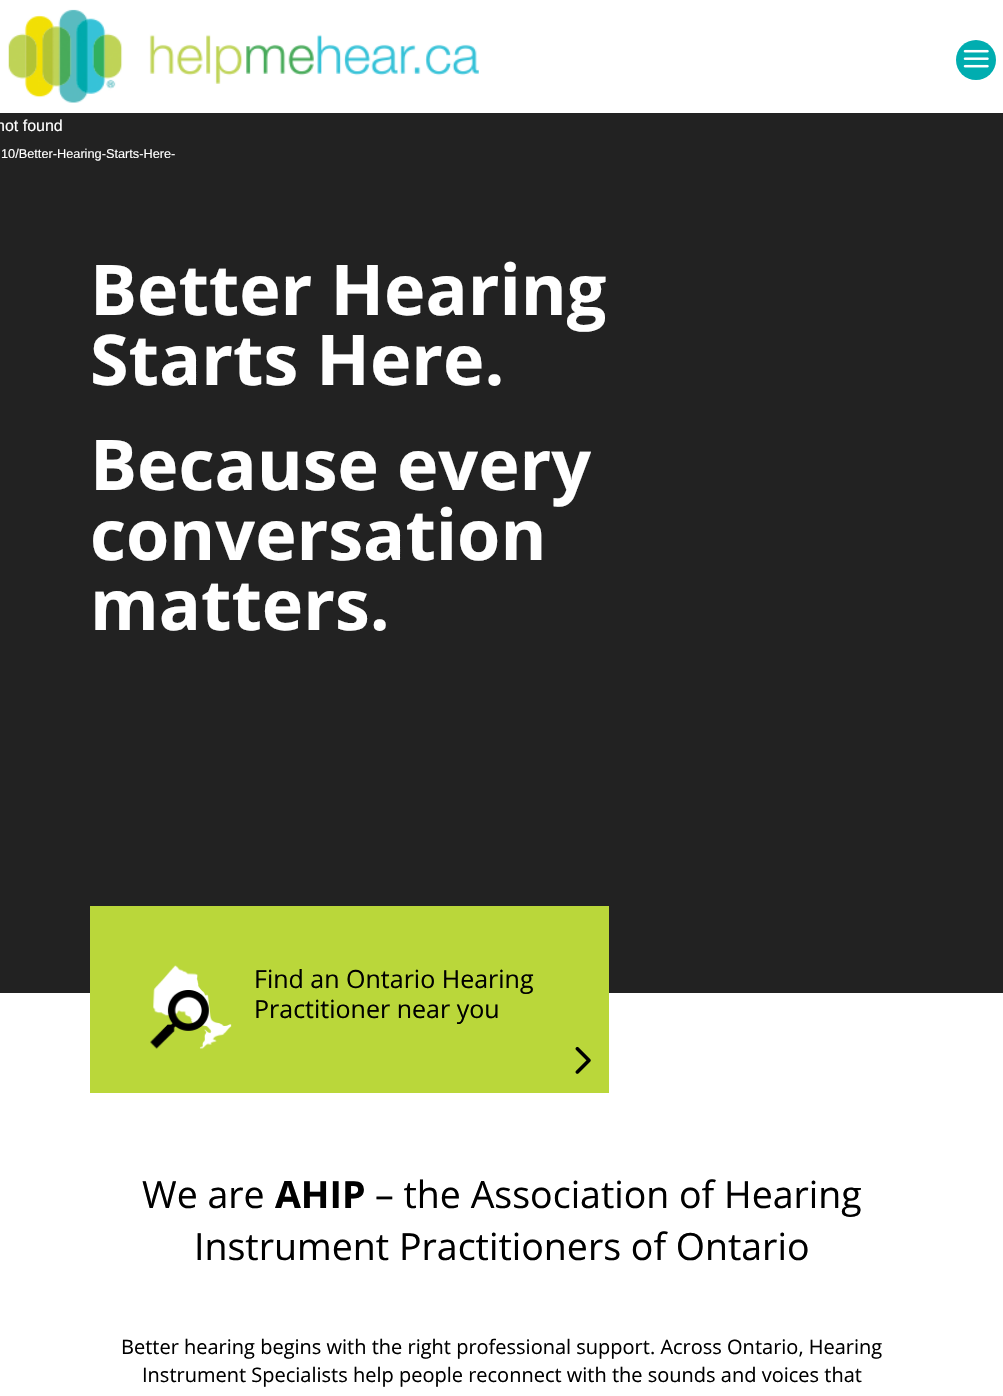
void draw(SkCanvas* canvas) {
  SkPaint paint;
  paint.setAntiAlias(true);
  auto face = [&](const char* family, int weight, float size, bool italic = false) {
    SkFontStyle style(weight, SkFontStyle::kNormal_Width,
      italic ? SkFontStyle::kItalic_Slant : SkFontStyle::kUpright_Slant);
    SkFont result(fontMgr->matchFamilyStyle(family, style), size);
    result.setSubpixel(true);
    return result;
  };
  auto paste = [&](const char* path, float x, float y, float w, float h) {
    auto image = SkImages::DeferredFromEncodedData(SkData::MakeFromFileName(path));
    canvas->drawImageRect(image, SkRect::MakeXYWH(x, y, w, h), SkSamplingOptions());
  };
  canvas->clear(0xffffffff);
  paste("img/1.png", 8, 9, 471, 94);
  paint.setColor(0xff00adb0);
  canvas->drawCircle(976, 60, 20, paint);
  paste("img/2.png", 963, 49, 26, 19);
  paint.setColor(0xff222222);
  canvas->drawRect(SkRect::MakeXYWH(0, 113, 1003, 880), paint);
  paint.setColor(0xffbad73a);
  canvas->drawRect(SkRect::MakeXYWH(90, 906, 519, 187), paint);
  paste("img/3.png", 150, 965, 82, 84);
  paste("img/4.png", 575, 1046, 16, 28);
  auto f0 = face("Liberation Sans", 400, 16);
  paint.setColor(0xffffffff);
  canvas->drawString("not found", -4, 131, f0, paint);
  auto f1 = face("Liberation Sans", 400, 12.75f);
  canvas->drawString("10/Better-Hearing-Starts-Here-", 1, 158, f1, paint);
  auto f2 = face("Open Sans", 700, 70);
  {
    const struct { const char* s; float x, y; } items[] = {
      {"Better Hearing", 90, 315},
      {"Starts Here.", 90, 385},
      {"Because every", 90, 490},
      {"conversation", 90, 560},
      {"matters.", 90, 630},
    };
    for (auto [s, x, y] : items) {
      canvas->drawString(s, x, y, f2, paint);
    }
  }
  auto f3 = face("Open Sans", 400, 25);
  paint.setColor(0xff000000);
  canvas->drawString("Find an Ontario Hearing", 254, 988, f3, paint);
  canvas->drawString("Practitioner near you", 254, 1018, f3, paint);
  auto f4 = face("Open Sans", 400, 37.5f);
  canvas->drawString("We are", 142, 1208, f4, paint);
  auto f5 = face("Open Sans", 700, 37.5f);
  canvas->drawString("AHIP", 275, 1208, f5, paint);
  canvas->drawString("– the Association of Hearing", 375, 1208, f4, paint);
  canvas->drawString("Instrument Practitioners of Ontario", 194, 1260, f4, paint);
  auto f6 = face("Open Sans", 400, 20);
  canvas->drawString("Better hearing begins with the right professional support. Across Ontario, Hearing", 121, 1354, f6, paint);
  canvas->drawString("Instrument Specialists help people reconnect with the sounds and voices that", 142, 1382, f6, paint);
}
